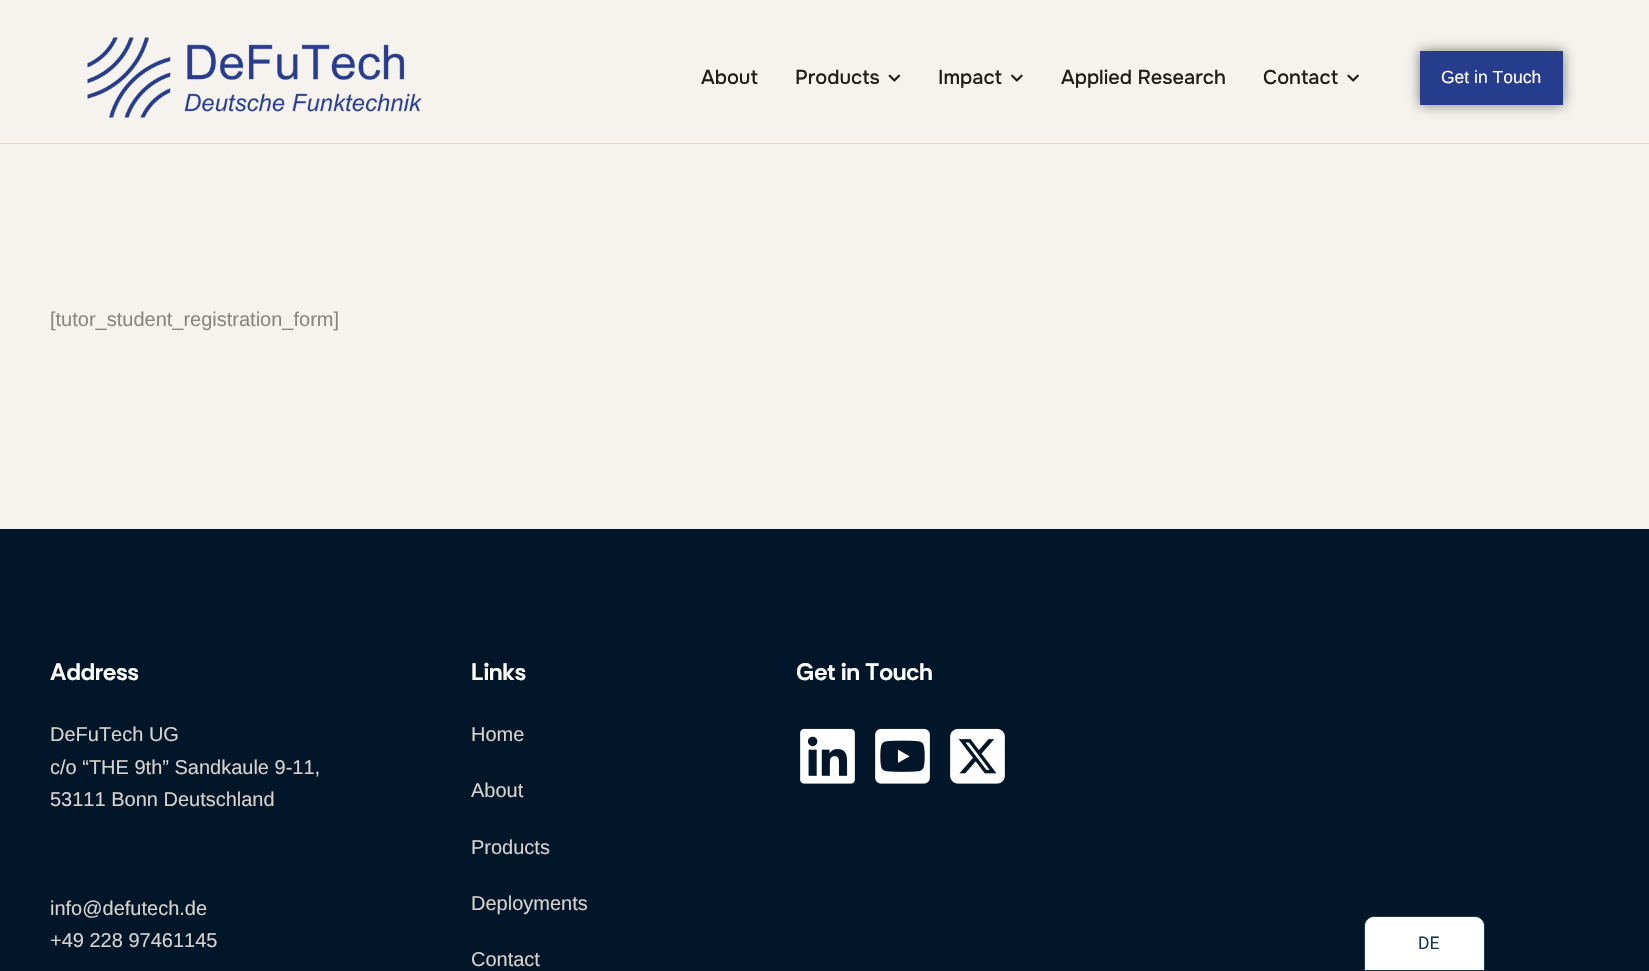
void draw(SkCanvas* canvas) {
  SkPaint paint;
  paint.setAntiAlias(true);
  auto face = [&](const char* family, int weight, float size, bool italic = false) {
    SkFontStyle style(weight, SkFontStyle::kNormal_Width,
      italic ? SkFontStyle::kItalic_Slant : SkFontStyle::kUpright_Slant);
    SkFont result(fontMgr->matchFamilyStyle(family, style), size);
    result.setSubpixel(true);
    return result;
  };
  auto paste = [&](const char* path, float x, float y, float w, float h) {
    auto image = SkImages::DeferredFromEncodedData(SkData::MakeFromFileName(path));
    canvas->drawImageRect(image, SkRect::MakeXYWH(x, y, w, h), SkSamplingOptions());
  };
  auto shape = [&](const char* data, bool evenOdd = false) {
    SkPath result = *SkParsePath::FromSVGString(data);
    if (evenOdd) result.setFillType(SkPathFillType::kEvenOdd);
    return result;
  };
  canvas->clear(0xfff6f2ee);
  paint.setColor(0xffe2d7cc);
  canvas->drawRect(SkRect::MakeXYWH(0, 143, 1649, 1), paint);
  paste("img/1.png", 87, 37, 335, 81);
  paste("img/2.png", 888, 74, 13, 8);
  paste("img/3.png", 1011, 74, 12, 8);
  paste("img/4.png", 1347, 74, 12, 8);
  paint.setColor(0x80000000);
  paint.setMaskFilter(SkMaskFilter::MakeBlur(kNormal_SkBlurStyle, 6));
  canvas->drawRect(SkRect::MakeXYWH(1420, 51, 143, 54), paint);
  paint.setMaskFilter(nullptr);
  paint.setColor(0xff263c8c);
  canvas->drawRect(SkRect::MakeXYWH(1420, 51, 143, 54), paint);
  paint.setColor(0xff02162a);
  canvas->drawRect(SkRect::MakeXYWH(0, 529, 1649, 442), paint);
  paste("img/5.png", 800, 728, 55, 56);
  paste("img/6.png", 875, 728, 55, 56);
  paste("img/7.png", 950, 728, 55, 56);
  paint.setColor(0xffffffff);
  canvas->drawPath(shape("M1374 916.5H1475C1480 916.5 1484.5 921 1484.5 926V970.5H1364.5V926C1364.5 921 1369 916.5 1374 916.5Z"), paint);
  paint.setStroke(true);
  paint.setStrokeWidth(1);
  paint.setColor(0xff143852);
  canvas->drawPath(shape("M1374 916.5H1475C1480 916.5 1484.5 921 1484.5 926V970.5H1364.5V926C1364.5 921 1369 916.5 1374 916.5Z"), paint);
  auto f0 = face("Onest", 500, 20);
  paint.setStroke(false);
  paint.setColor(0xff221e1b);
  {
    const struct { const char* s; float x, y; } items[] = {
      {"About", 701, 84},
      {"Products", 795, 84},
      {"Impact", 938, 84},
      {"Applied Research", 1061, 84},
      {"Contact", 1263, 84},
    };
    for (auto [s, x, y] : items) {
      canvas->drawString(s, x, y, f0, paint);
    }
  }
  auto f1 = face("Liberation Sans", 400, 17.5f);
  paint.setColor(0xfffffefe);
  canvas->drawString("Get in Touch", 1441, 83, f1, paint);
  auto f2 = face("Liberation Sans", 400, 20);
  paint.setColor(0xff898683);
  canvas->drawString("[tutor_student_registration_form]", 50, 326, f2, paint);
  auto f3 = face("Rethink Sans", 700, 23.75f);
  paint.setColor(0xfffffefe);
  canvas->drawString("Address", 50, 680, f3, paint);
  paint.setColor(0xffd7d2ce);
  {
    const struct { const char* s; float x, y; } items[] = {
      {"DeFuTech UG", 50, 741},
      {"c/o “THE 9th” Sandkaule 9-11,", 50, 774},
      {"53111 Bonn Deutschland", 50, 806},
      {"info@defutech.de", 50, 915},
      {"+49 228 97461145", 50, 947},
    };
    for (auto [s, x, y] : items) {
      canvas->drawString(s, x, y, f2, paint);
    }
  }
  paint.setColor(0xfffffefe);
  canvas->drawString("Links", 471, 680, f3, paint);
  paint.setColor(0xffd7d2ce);
  {
    const struct { const char* s; float x, y; } items[] = {
      {"Home", 471, 741},
      {"About", 471, 797},
      {"Products", 471, 854},
      {"Deployments", 471, 910},
      {"Contact", 471, 966},
    };
    for (auto [s, x, y] : items) {
      canvas->drawString(s, x, y, f2, paint);
    }
  }
  paint.setColor(0xfffffefe);
  canvas->drawString("Get in Touch", 796, 680, f3, paint);
  auto f4 = face("Roboto", 400, 17.5f);
  paint.setColor(0xff143852);
  canvas->drawString("DE", 1418, 949, f4, paint);
}
